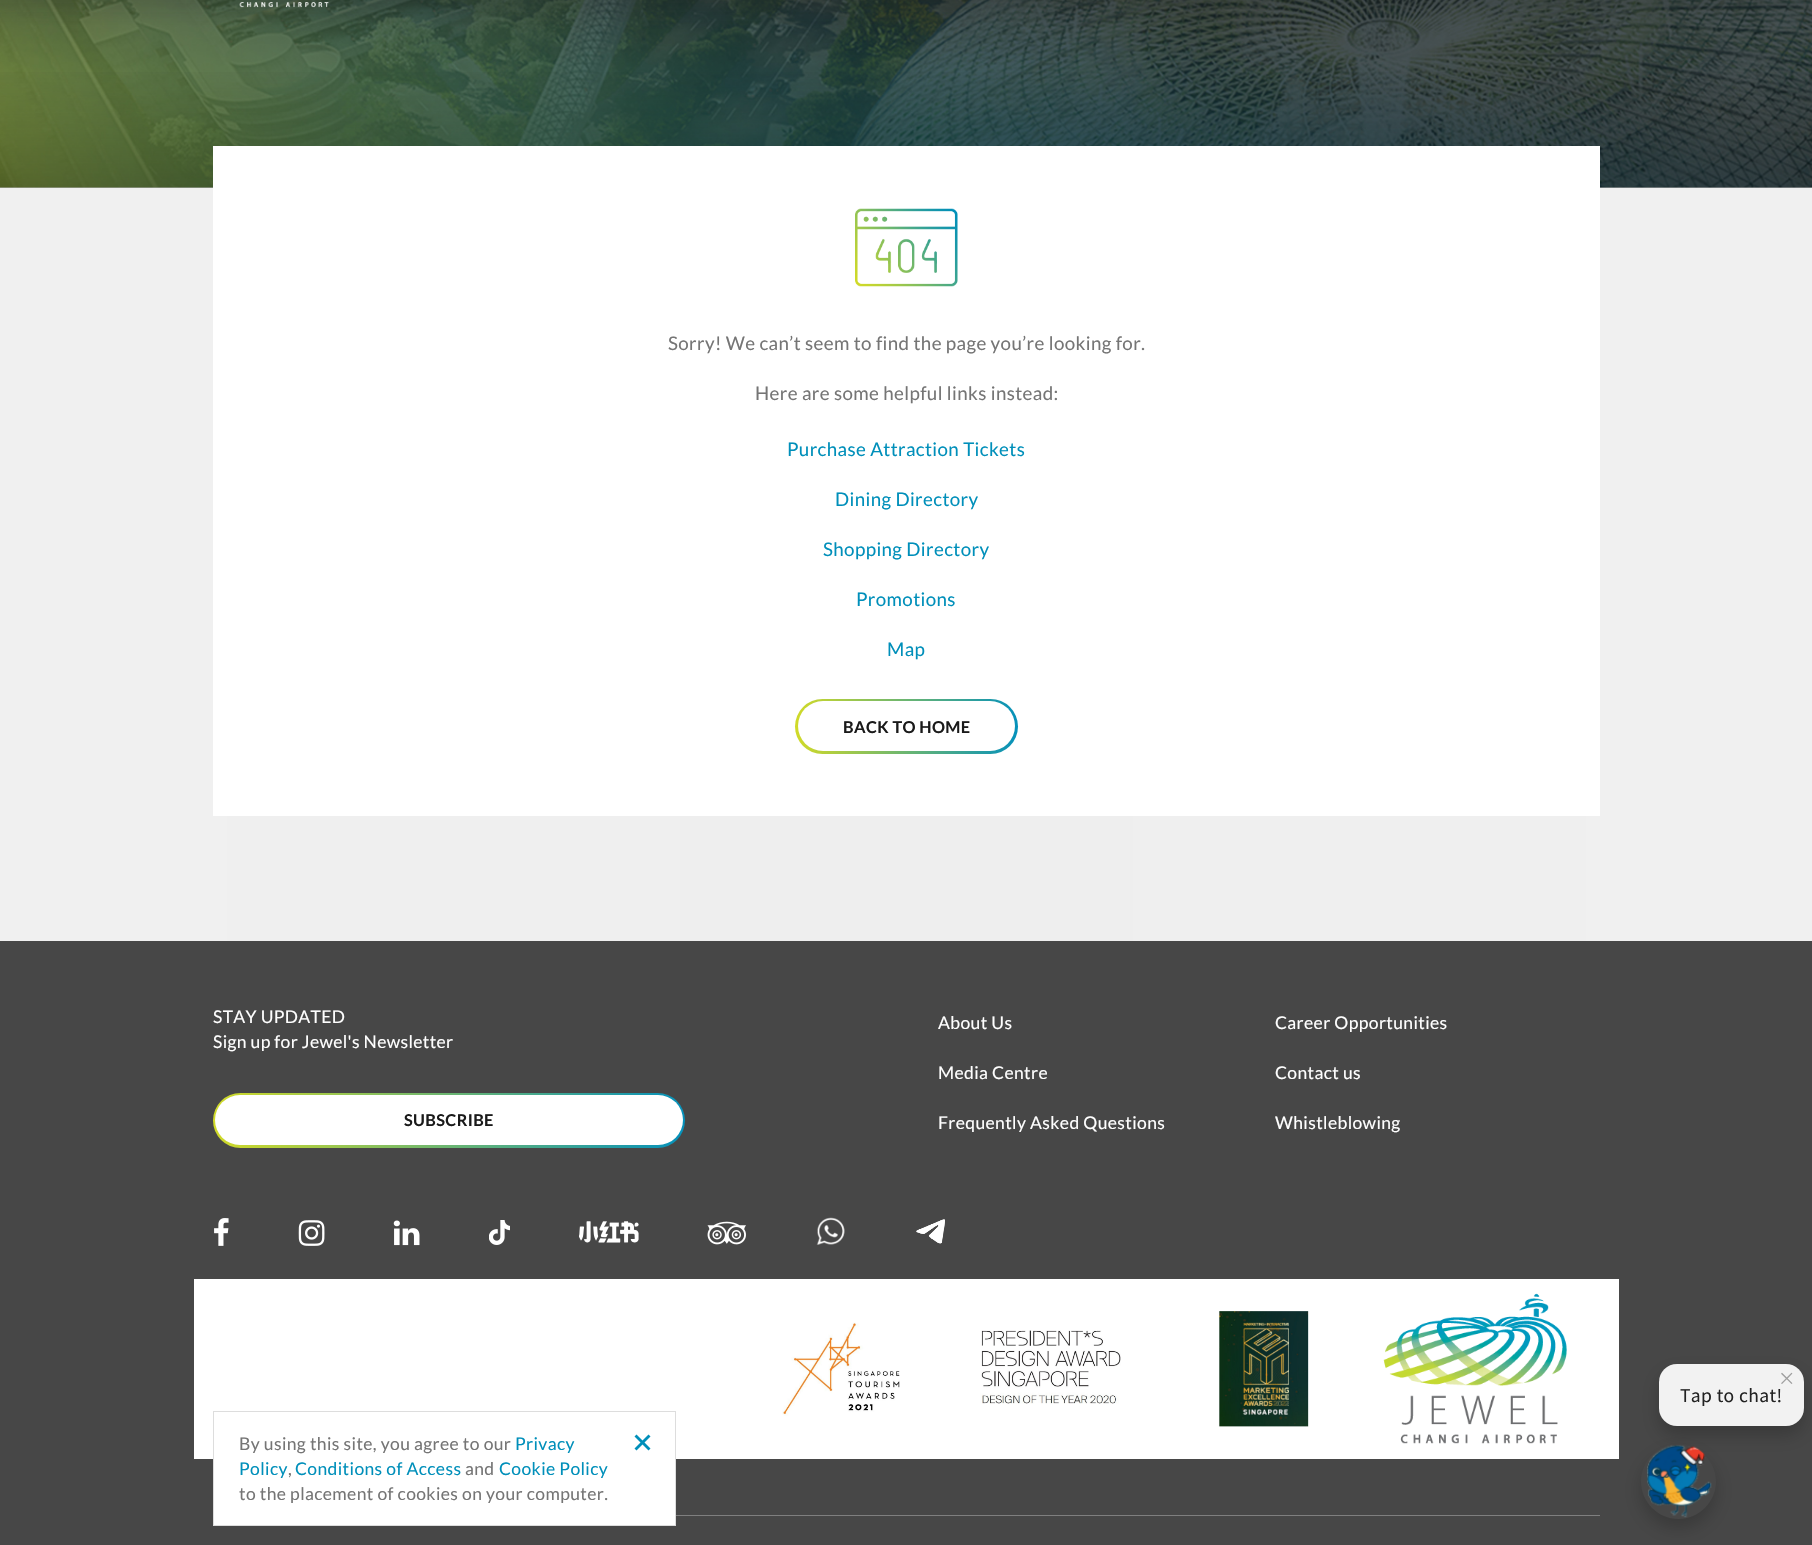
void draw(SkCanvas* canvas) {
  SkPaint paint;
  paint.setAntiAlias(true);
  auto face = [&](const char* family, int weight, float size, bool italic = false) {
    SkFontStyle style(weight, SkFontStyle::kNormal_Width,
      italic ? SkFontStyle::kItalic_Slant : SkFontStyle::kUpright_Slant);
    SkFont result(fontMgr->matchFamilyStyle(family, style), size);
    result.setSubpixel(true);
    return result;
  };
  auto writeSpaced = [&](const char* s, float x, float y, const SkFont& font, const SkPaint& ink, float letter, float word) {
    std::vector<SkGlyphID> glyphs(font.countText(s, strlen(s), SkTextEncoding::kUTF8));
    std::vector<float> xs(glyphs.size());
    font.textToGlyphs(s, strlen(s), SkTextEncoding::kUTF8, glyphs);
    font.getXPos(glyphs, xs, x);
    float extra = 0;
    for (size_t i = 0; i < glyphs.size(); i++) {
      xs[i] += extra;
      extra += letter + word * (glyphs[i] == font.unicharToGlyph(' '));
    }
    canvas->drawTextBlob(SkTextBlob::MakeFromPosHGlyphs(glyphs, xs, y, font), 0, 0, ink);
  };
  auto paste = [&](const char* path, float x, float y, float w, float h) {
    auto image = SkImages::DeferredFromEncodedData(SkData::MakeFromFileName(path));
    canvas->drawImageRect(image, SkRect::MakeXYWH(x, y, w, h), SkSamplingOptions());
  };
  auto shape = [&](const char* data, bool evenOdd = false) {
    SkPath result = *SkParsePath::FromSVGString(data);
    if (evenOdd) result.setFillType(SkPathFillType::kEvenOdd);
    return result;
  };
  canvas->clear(0xffffffff);
  paste("img/2.png", 0, 0, 1812, 188);
  paste("img/1.png", 239, 2, 90, 6);
  {
    const SkColor colors[] = {0x4d000000, 0x00000000};
    const float stops[] = {0, 1};
    const SkPoint ends[] = {{906, 188}, {906, 63}};
    paint.setShader(SkGradientShader::MakeLinear(ends, colors, stops, 2, SkTileMode::kClamp));
    paint.setAlpha(255);
  }
  canvas->drawRect(SkRect::MakeXYWH(0, 72, 1812, 116), paint);
  {
    const SkColor colors[] = {0xfff0f0f0, 0xffeeeeee, 0xfff0f0f0};
    const float stops[] = {0, 0.5f, 1};
    const SkPoint ends[] = {{0, 564}, {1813, 564}};
    paint.setShader(SkGradientShader::MakeLinear(ends, colors, stops, 3, SkTileMode::kClamp));
    paint.setAlpha(255);
  }
  canvas->drawRect(SkRect::MakeXYWH(0, 188, 1812, 753), paint);
  paint.setShader(nullptr);
  paint.setColor(0xffffffff);
  canvas->drawRect(SkRect::MakeXYWH(213, 146, 1387, 670), paint);
  paste("img/3.png", 855, 208, 103, 79);
  {
    const SkColor colors[] = {0xff0591bb, 0xffd1da28};
    const float stops[] = {0, 1};
    const SkPoint ends[] = {{1018, 726}, {795, 726}};
    paint.setShader(SkGradientShader::MakeLinear(ends, colors, stops, 2, SkTileMode::kClamp));
    paint.setAlpha(255);
  }
  canvas->drawRoundRect(SkRect::MakeXYWH(795, 699, 223, 55), 27.5f, 27.5f, paint);
  paint.setShader(nullptr);
  paint.setColor(0xffffffff);
  canvas->drawRoundRect(SkRect::MakeXYWH(798, 701, 217, 50), 25, 25, paint);
  paint.setColor(0xff474747);
  canvas->drawRect(SkRect::MakeXYWH(0, 941, 1812, 604), paint);
  {
    const SkColor colors[] = {0xff0591bb, 0xffd1da28};
    const float stops[] = {0, 1};
    const SkPoint ends[] = {{685, 1120}, {213, 1120}};
    paint.setShader(SkGradientShader::MakeLinear(ends, colors, stops, 2, SkTileMode::kClamp));
    paint.setAlpha(255);
  }
  canvas->drawRoundRect(SkRect::MakeXYWH(213, 1093, 472, 55), 27.5f, 27.5f, paint);
  paint.setShader(nullptr);
  paint.setColor(0xffffffff);
  canvas->drawRoundRect(SkRect::MakeXYWH(215, 1095, 468, 50), 25, 25, paint);
  paste("img/4.png", 214, 1218, 15, 28);
  paste("img/5.png", 298, 1220, 27, 26);
  paste("img/6.png", 393, 1220, 27, 26);
  paste("img/7.png", 489, 1220, 21, 25);
  paste("img/8.png", 579, 1221, 60, 22);
  paste("img/9.png", 707, 1221, 39, 24);
  paste("img/10.png", 816, 1217, 29, 28);
  paste("img/11.png", 916, 1219, 29, 25);
  canvas->drawRect(SkRect::MakeXYWH(194, 1279, 1425, 180), paint);
  paste("img/12.png", 782, 1322, 118, 94);
  paste("img/13.png", 980, 1330, 141, 74);
  paste("img/14.png", 1218, 1311, 91, 116);
  paste("img/15.png", 1383, 1293, 184, 151);
  paint.setColor(0xff7f7f7f);
  canvas->drawRect(SkRect::MakeXYWH(676, 1515, 924, 1), paint);
  paint.setColor(0xffffffff);
  canvas->drawRect(SkRect::MakeXYWH(214, 1459, 461, 66), paint);
  paint.setStroke(true);
  paint.setStrokeWidth(1);
  paint.setColor(0xffdddddd);
  canvas->drawRect(SkRect::MakeXYWH(213.5f, 1411.5f, 462, 114), paint);
  paint.setStroke(false);
  paint.setColor(0xff008fba);
  canvas->drawPath(shape("M636.5 1434.5L650.5 1448.5L648.5 1450.5L634.5 1436.5Z"), paint);
  canvas->drawPath(shape("M634.5 1448.5L648.5 1434.5L650.5 1436.5L636.5 1450.5Z"), paint);
  paint.setColor(0x33000000);
  paint.setMaskFilter(SkMaskFilter::MakeBlur(kNormal_SkBlurStyle, 9));
  canvas->drawRoundRect(SkRect::MakeXYWH(1659, 1373, 145, 62), 18, 18, paint);
  paint.setMaskFilter(nullptr);
  paint.setColor(0xfff2f2f2);
  canvas->drawRoundRect(SkRect::MakeXYWH(1659, 1364, 145, 62), 18, 18, paint);
  canvas->save();
  canvas->clipPath(shape("M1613 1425H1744V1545H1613ZM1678.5 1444C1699 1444 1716 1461 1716 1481.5C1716 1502 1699 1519 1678.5 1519C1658 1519 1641 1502 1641 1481.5C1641 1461 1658 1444 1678.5 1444Z", true), true);
  paint.setColor(0x33000000);
  paint.setMaskFilter(SkMaskFilter::MakeBlur(kNormal_SkBlurStyle, 9));
  canvas->drawRoundRect(SkRect::MakeXYWH(1641, 1453, 75, 75), 37.5f, 37.5f, paint);
  paint.setMaskFilter(nullptr);
  canvas->restore();
  paste("img/16.png", 1647, 1445, 65, 73);
  auto f0 = face("Lato", 400, 18.75f);
  paint.setColor(0xff757575);
  writeSpaced("Sorry! We can’t seem to find the page you’re looking for.", 668, 350, f0, paint, 0.38f, 0);
  writeSpaced("Here are some helpful links instead:", 755, 400, f0, paint, 0.38f, 0);
  paint.setColor(0xff008fba);
  {
    const struct { const char* s; float x, y; } items[] = {
      {"Purchase Attraction Tickets", 787, 456},
      {"Dining Directory", 835, 506},
      {"Shopping Directory", 823, 556},
      {"Promotions", 856, 606},
      {"Map", 887, 656},
    };
    for (auto [s, x, y] : items) {
      writeSpaced(s, x, y, f0, paint, 0.38f, 0);
    }
  }
  auto f1 = face("Lato", 700, 16.25f);
  paint.setColor(0xff1a1a1a);
  writeSpaced("BACK TO HOME", 843, 733, f1, paint, 0.38f, 0);
  auto f2 = face("Lato", 400, 17.5f);
  paint.setColor(0xffffffff);
  writeSpaced("STAY UPDATED", 213, 1023, f2, paint, 0.35f, 0);
  writeSpaced("Sign up for Jewel's Newsletter", 213, 1048, f2, paint, 0.35f, 0);
  paint.setColor(0xff1a1a1a);
  writeSpaced("SUBSCRIBE", 404, 1126, f1, paint, 0.38f, 0);
  paint.setColor(0xffffffff);
  {
    const struct { const char* s; float x, y; } items[] = {
      {"About Us", 938, 1029},
      {"Career Opportunities", 1275, 1029},
      {"Media Centre", 938, 1079},
      {"Contact us", 1275, 1079},
      {"Frequently Asked Questions", 938, 1129},
      {"Whistleblowing", 1275, 1129},
    };
    for (auto [s, x, y] : items) {
      writeSpaced(s, x, y, f2, paint, 0.38f, 0);
    }
  }
  paint.setColor(0xff757575);
  writeSpaced("By using this site, you agree to our", 239, 1450, f2, paint, 0.38f, 0);
  paint.setColor(0xff008fba);
  writeSpaced("Privacy", 515, 1450, f2, paint, 0.38f, 0);
  writeSpaced("Policy", 239, 1475, f2, paint, 0.38f, 0);
  paint.setColor(0xff757575);
  writeSpaced(",", 288, 1475, f2, paint, 0.38f, 0);
  paint.setColor(0xff008fba);
  writeSpaced("Conditions of Access", 295, 1475, f2, paint, 0.38f, 0);
  paint.setColor(0xff757575);
  writeSpaced("and", 465, 1475, f2, paint, 0.38f, 0);
  paint.setColor(0xff008fba);
  writeSpaced("Cookie Policy", 499, 1475, f2, paint, 0.38f, 0);
  paint.setColor(0xff757575);
  writeSpaced("to the placement of cookies on your computer.", 239, 1500, f2, paint, 0.38f, 0);
  auto f3 = face("Noto Sans JP", 400, 17.5f);
  paint.setColor(0xff9f9f9f);
  writeSpaced("×", 1778, 1385, f3, paint, 0.38f, 0);
  paint.setColor(0xff222222);
  writeSpaced("Tap to chat!", 1680, 1402, f3, paint, 0.38f, 0);
}
